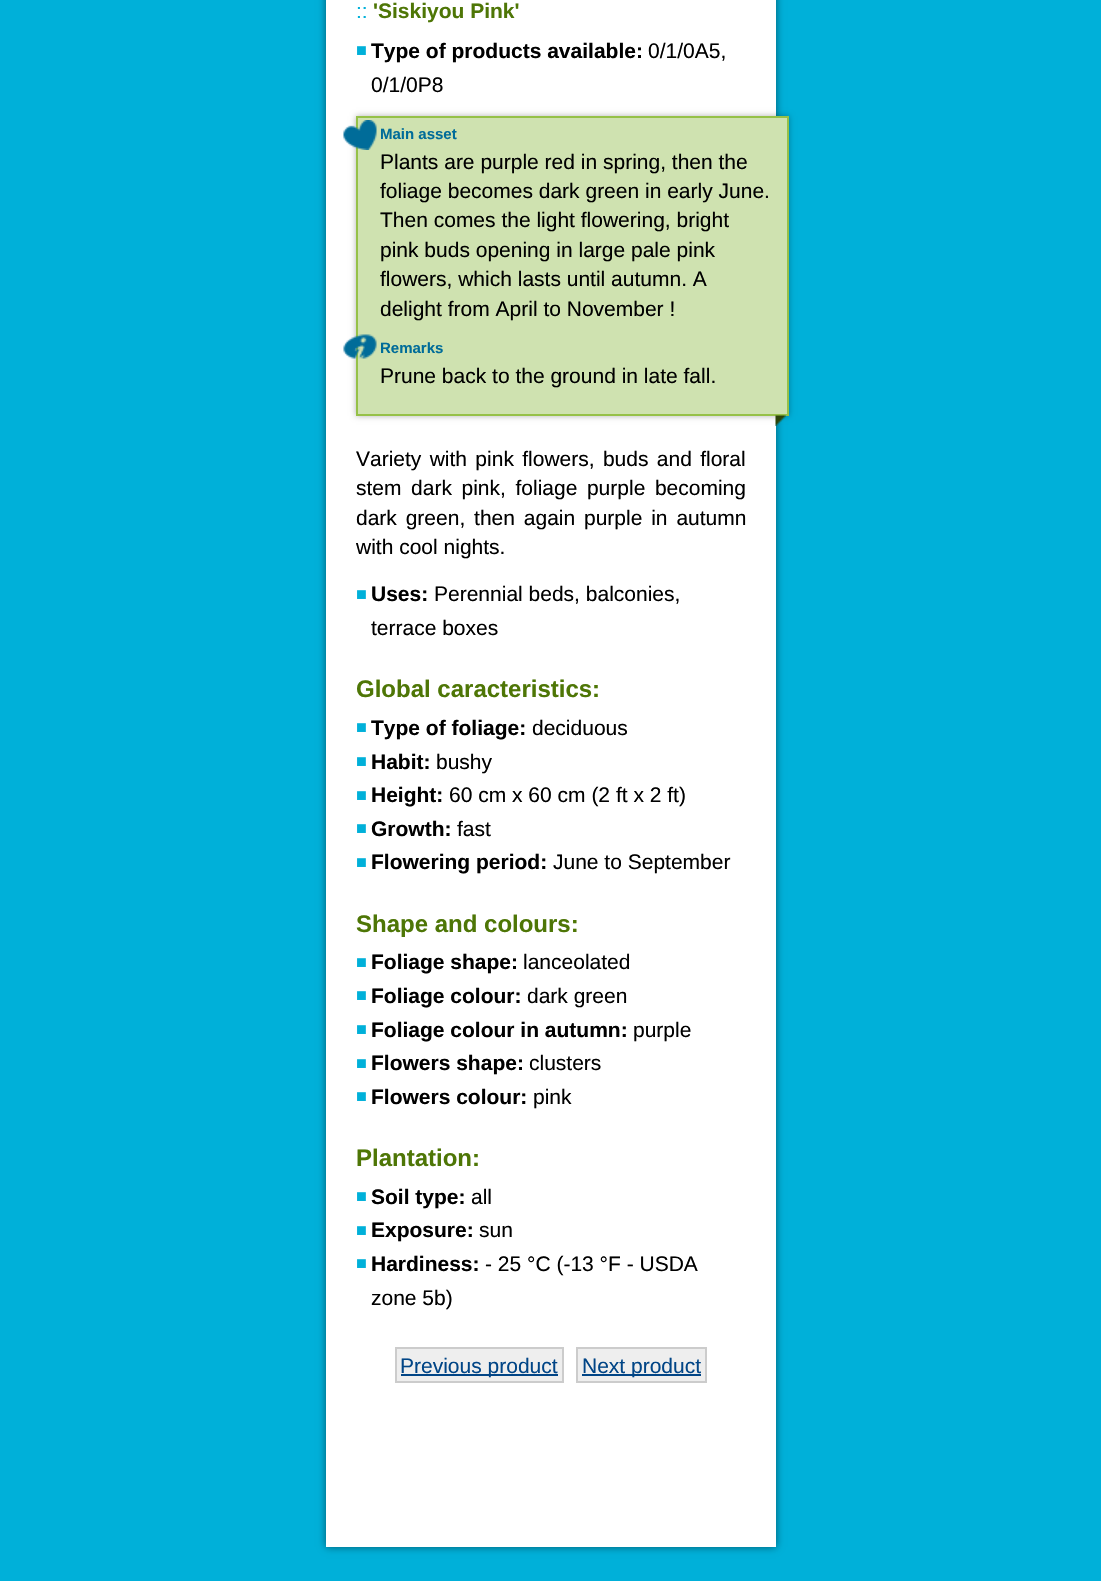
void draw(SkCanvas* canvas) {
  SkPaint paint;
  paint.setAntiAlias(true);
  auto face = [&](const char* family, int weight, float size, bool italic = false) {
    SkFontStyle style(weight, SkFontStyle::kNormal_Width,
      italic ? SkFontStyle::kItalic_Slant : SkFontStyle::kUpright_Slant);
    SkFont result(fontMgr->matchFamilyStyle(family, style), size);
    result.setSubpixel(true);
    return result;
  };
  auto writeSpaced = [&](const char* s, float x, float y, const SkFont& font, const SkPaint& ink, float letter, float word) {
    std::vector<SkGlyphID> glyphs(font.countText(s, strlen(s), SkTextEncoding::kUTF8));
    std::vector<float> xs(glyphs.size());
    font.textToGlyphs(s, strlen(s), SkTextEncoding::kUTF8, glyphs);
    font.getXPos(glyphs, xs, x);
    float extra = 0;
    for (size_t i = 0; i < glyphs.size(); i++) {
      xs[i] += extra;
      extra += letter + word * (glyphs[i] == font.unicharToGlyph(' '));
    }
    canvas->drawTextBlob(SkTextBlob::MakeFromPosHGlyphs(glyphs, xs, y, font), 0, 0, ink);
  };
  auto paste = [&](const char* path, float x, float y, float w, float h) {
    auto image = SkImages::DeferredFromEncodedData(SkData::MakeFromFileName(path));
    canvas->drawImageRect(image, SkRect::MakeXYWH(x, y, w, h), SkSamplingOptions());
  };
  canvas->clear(0xff00b0d9);
  paint.setColor(0x80000000);
  paint.setMaskFilter(SkMaskFilter::MakeBlur(kNormal_SkBlurStyle, 4));
  canvas->drawRect(SkRect::MakeXYWH(326, -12, 450, 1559), paint);
  paint.setMaskFilter(nullptr);
  {
    const SkColor colors[] = {0xffa1a1a1, 0xffffffff};
    const float stops[] = {0, 0};
    const SkPoint ends[] = {{550, -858}, {551, 1547}};
    paint.setShader(SkGradientShader::MakeLinear(ends, colors, stops, 2, SkTileMode::kClamp));
    paint.setAlpha(255);
  }
  canvas->drawRect(SkRect::MakeXYWH(326, 0, 450, 1547), paint);
  paint.setShader(nullptr);
  paint.setColor(0x4d000000);
  paint.setMaskFilter(SkMaskFilter::MakeBlur(kNormal_SkBlurStyle, 3));
  canvas->drawRect(SkRect::MakeXYWH(356, 116, 433, 300), paint);
  paint.setMaskFilter(nullptr);
  paint.setColor(0xffcfe2b0);
  canvas->drawRect(SkRect::MakeXYWH(357, 117, 431, 298), paint);
  paint.setStroke(true);
  paint.setStrokeWidth(2);
  paint.setColor(0xff96c148);
  canvas->drawRect(SkRect::MakeXYWH(357, 117, 431, 298), paint);
  paste("img/1.png", 343, 120, 34, 30);
  paste("img/2.png", 343, 334, 34, 25);
  paste("img/3.png", 775, 415, 11, 11);
  paint.setStroke(false);
  paint.setColor(0xffeeeeee);
  canvas->drawRect(SkRect::MakeXYWH(396, 1348, 167, 34), paint);
  paint.setStroke(true);
  paint.setColor(0xffcccccc);
  canvas->drawRect(SkRect::MakeXYWH(396, 1348, 167, 34), paint);
  paint.setStroke(false);
  paint.setColor(0xff014586);
  canvas->drawRect(SkRect::MakeXYWH(401, 1374, 157, 2), paint);
  paint.setColor(0xffeeeeee);
  canvas->drawRect(SkRect::MakeXYWH(577, 1348, 129, 34), paint);
  paint.setStroke(true);
  paint.setColor(0xffcccccc);
  canvas->drawRect(SkRect::MakeXYWH(577, 1348, 129, 34), paint);
  paint.setStroke(false);
  paint.setColor(0xff014586);
  canvas->drawRect(SkRect::MakeXYWH(582, 1374, 119, 2), paint);
  auto f0 = face("Liberation Sans", 400, 21);
  paint.setColor(0xff00b0d9);
  canvas->drawString("::", 356, 18, f0, paint);
  auto f1 = face("Liberation Sans", 700, 21);
  paint.setColor(0xff4e7606);
  canvas->drawString("'Siskiyou Pink'", 373, 18, f1, paint);
  auto f2 = face("Liberation Sans", 400, 18);
  paint.setColor(0xff00b0d9);
  canvas->drawString("■", 356, 56, f2, paint);
  paint.setColor(0xff000000);
  canvas->drawString("Type of products available:", 371, 58, f1, paint);
  canvas->drawString("0/1/0A5,", 648, 58, f0, paint);
  canvas->drawString("0/1/0P8", 371, 92, f0, paint);
  auto f3 = face("Liberation Sans", 700, 15);
  paint.setColor(0xff006c99);
  canvas->drawString("Main asset", 380, 139, f3, paint);
  paint.setColor(0xff000000);
  {
    const struct { const char* s; float x, y; } items[] = {
      {"Plants are purple red in spring, then the", 380, 169},
      {"foliage becomes dark green in early June.", 380, 198},
      {"Then comes the light flowering, bright", 380, 227},
      {"pink buds opening in large pale pink", 380, 257},
      {"flowers, which lasts until autumn. A", 380, 286},
      {"delight from April to November !", 380, 316},
    };
    for (auto [s, x, y] : items) {
      canvas->drawString(s, x, y, f0, paint);
    }
  }
  paint.setColor(0xff006c99);
  canvas->drawString("Remarks", 380, 353, f3, paint);
  paint.setColor(0xff000000);
  canvas->drawString("Prune back to the ground in late fall.", 380, 383, f0, paint);
  writeSpaced("Variety with pink flowers, buds and floral", 356, 466, f0, paint, 0, 2.5f);
  writeSpaced("stem dark pink, foliage purple becoming", 356, 495, f0, paint, 0, 3.75f);
  writeSpaced("dark green, then again purple in autumn", 356, 525, f0, paint, 0, 3);
  canvas->drawString("with cool nights.", 356, 554, f0, paint);
  paint.setColor(0xff00b0d9);
  canvas->drawString("■", 356, 600, f2, paint);
  paint.setColor(0xff000000);
  canvas->drawString("Uses:", 371, 601, f1, paint);
  canvas->drawString("Perennial beds, balconies,", 434, 601, f0, paint);
  canvas->drawString("terrace boxes", 371, 635, f0, paint);
  auto f4 = face("Liberation Sans", 700, 24);
  paint.setColor(0xff4e7606);
  canvas->drawString("Global caracteristics:", 356, 697, f4, paint);
  paint.setColor(0xff00b0d9);
  canvas->drawString("■", 356, 733, f2, paint);
  paint.setColor(0xff000000);
  canvas->drawString("Type of foliage:", 371, 735, f1, paint);
  canvas->drawString("deciduous", 532, 735, f0, paint);
  paint.setColor(0xff00b0d9);
  canvas->drawString("■", 356, 767, f2, paint);
  paint.setColor(0xff000000);
  canvas->drawString("Habit:", 371, 769, f1, paint);
  canvas->drawString("bushy", 436, 769, f0, paint);
  paint.setColor(0xff00b0d9);
  canvas->drawString("■", 356, 801, f2, paint);
  paint.setColor(0xff000000);
  canvas->drawString("Height:", 371, 802, f1, paint);
  canvas->drawString("60 cm x 60 cm (2 ft x 2 ft)", 449, 802, f0, paint);
  paint.setColor(0xff00b0d9);
  canvas->drawString("■", 356, 834, f2, paint);
  paint.setColor(0xff000000);
  canvas->drawString("Growth:", 371, 836, f1, paint);
  canvas->drawString("fast", 457, 836, f0, paint);
  paint.setColor(0xff00b0d9);
  canvas->drawString("■", 356, 868, f2, paint);
  paint.setColor(0xff000000);
  canvas->drawString("Flowering period:", 371, 869, f1, paint);
  canvas->drawString("June to September", 553, 869, f0, paint);
  paint.setColor(0xff4e7606);
  canvas->drawString("Shape and colours:", 356, 932, f4, paint);
  paint.setColor(0xff00b0d9);
  canvas->drawString("■", 356, 968, f2, paint);
  paint.setColor(0xff000000);
  canvas->drawString("Foliage shape:", 371, 969, f1, paint);
  canvas->drawString("lanceolated", 523, 969, f0, paint);
  paint.setColor(0xff00b0d9);
  canvas->drawString("■", 356, 1001, f2, paint);
  paint.setColor(0xff000000);
  canvas->drawString("Foliage colour:", 371, 1003, f1, paint);
  canvas->drawString("dark green", 527, 1003, f0, paint);
  paint.setColor(0xff00b0d9);
  canvas->drawString("■", 356, 1035, f2, paint);
  paint.setColor(0xff000000);
  canvas->drawString("Foliage colour in autumn:", 371, 1037, f1, paint);
  canvas->drawString("purple", 633, 1037, f0, paint);
  paint.setColor(0xff00b0d9);
  canvas->drawString("■", 356, 1069, f2, paint);
  paint.setColor(0xff000000);
  canvas->drawString("Flowers shape:", 371, 1070, f1, paint);
  canvas->drawString("clusters", 529, 1070, f0, paint);
  paint.setColor(0xff00b0d9);
  canvas->drawString("■", 356, 1102, f2, paint);
  paint.setColor(0xff000000);
  canvas->drawString("Flowers colour:", 371, 1104, f1, paint);
  canvas->drawString("pink", 533, 1104, f0, paint);
  paint.setColor(0xff4e7606);
  canvas->drawString("Plantation:", 356, 1166, f4, paint);
  paint.setColor(0xff00b0d9);
  canvas->drawString("■", 356, 1202, f2, paint);
  paint.setColor(0xff000000);
  canvas->drawString("Soil type:", 371, 1204, f1, paint);
  canvas->drawString("all", 471, 1204, f0, paint);
  paint.setColor(0xff00b0d9);
  canvas->drawString("■", 356, 1236, f2, paint);
  paint.setColor(0xff000000);
  canvas->drawString("Exposure:", 371, 1237, f1, paint);
  canvas->drawString("sun", 479, 1237, f0, paint);
  paint.setColor(0xff00b0d9);
  canvas->drawString("■", 356, 1269, f2, paint);
  paint.setColor(0xff000000);
  canvas->drawString("Hardiness:", 371, 1271, f1, paint);
  canvas->drawString("- 25 °C (-13 °F - USDA", 485, 1271, f0, paint);
  canvas->drawString("zone 5b)", 371, 1305, f0, paint);
  paint.setColor(0xff014586);
  canvas->drawString("Previous product", 400, 1373, f0, paint);
  canvas->drawString("Next product", 582, 1373, f0, paint);
}
